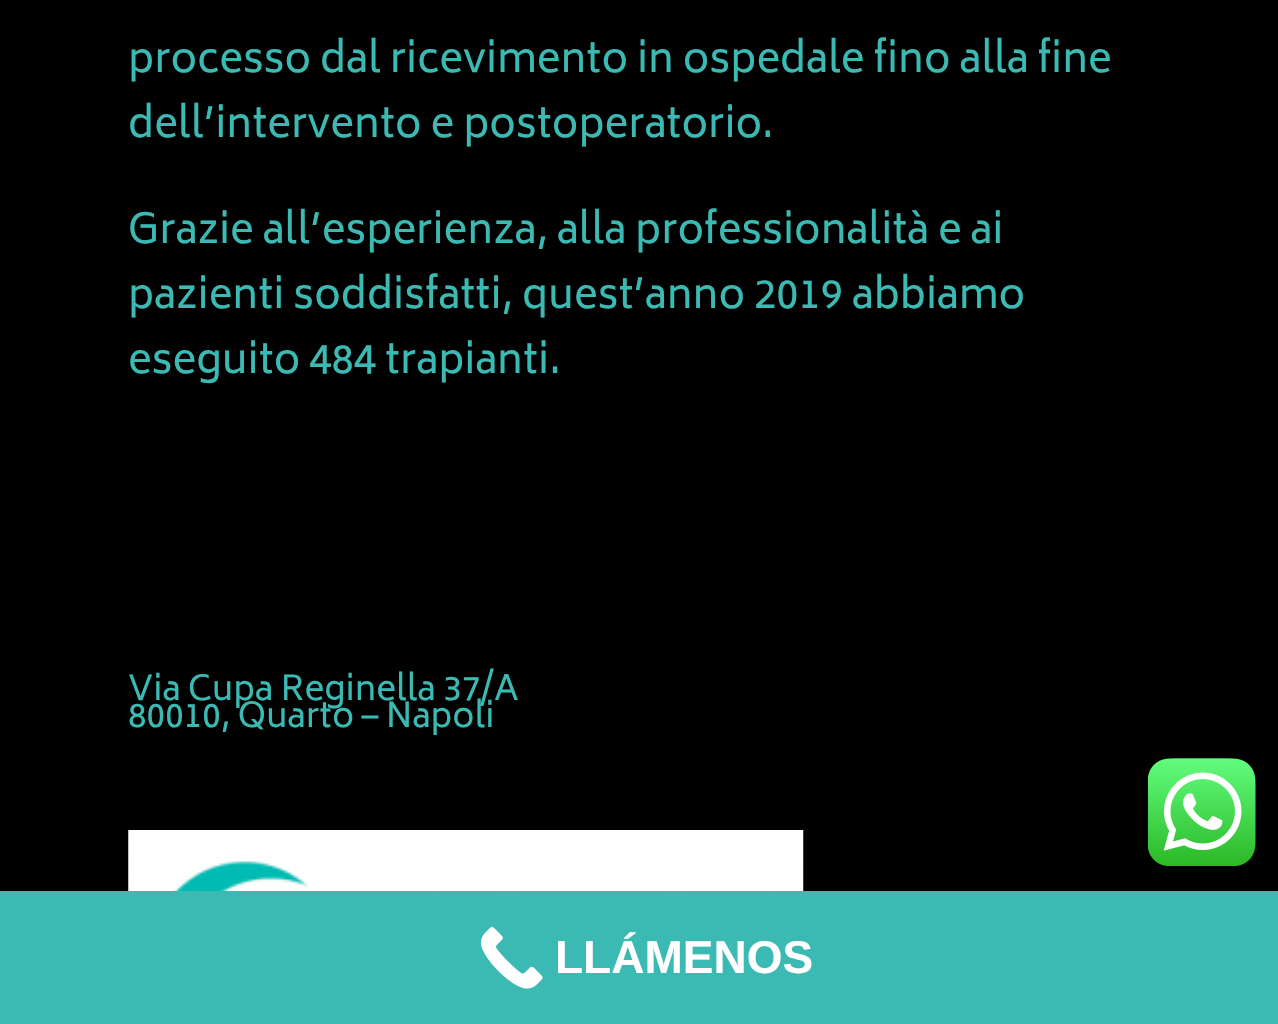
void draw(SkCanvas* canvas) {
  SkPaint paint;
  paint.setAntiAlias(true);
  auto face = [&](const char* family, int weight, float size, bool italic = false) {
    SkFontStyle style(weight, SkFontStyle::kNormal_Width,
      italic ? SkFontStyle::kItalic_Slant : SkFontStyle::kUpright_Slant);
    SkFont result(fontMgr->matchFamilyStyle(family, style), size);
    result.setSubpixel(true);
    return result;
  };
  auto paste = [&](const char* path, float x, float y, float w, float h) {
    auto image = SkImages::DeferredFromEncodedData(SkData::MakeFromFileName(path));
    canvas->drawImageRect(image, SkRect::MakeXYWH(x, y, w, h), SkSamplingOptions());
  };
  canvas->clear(0xff000000);
  paste("img/1.png", 128, 830, 676, 61);
  paste("img/2.png", 1148, 758, 108, 108);
  paint.setColor(0xff3bbab4);
  canvas->drawRect(SkRect::MakeXYWH(0, 891, 1278, 133), paint);
  paste("img/3.png", 481, 927, 62, 62);
  auto f0 = face("Biryani", 400, 40.5f);
  {
    const struct { const char* s; float x, y; } items[] = {
      {"processo dal ricevimento in ospedale fino alla fine", 128, 72},
      {"dell’intervento e postoperatorio.", 128, 137},
      {"Grazie all’esperienza, alla professionalità e ai", 128, 243},
      {"pazienti soddisfatti, quest’anno 2019 abbiamo", 128, 308},
      {"eseguito 484 trapianti.", 128, 373},
    };
    for (auto [s, x, y] : items) {
      canvas->drawString(s, x, y, f0, paint);
    }
  }
  auto f1 = face("Biryani", 400, 33.75f);
  canvas->drawString("Via Cupa Reginella 37/A", 128, 700, f1, paint);
  canvas->drawString("80010, Quarto – Napoli", 128, 727, f1, paint);
  auto f2 = face("Liberation Sans", 700, 46);
  paint.setColor(0xffffffff);
  canvas->drawString("LLÁMENOS", 555, 973, f2, paint);
}
